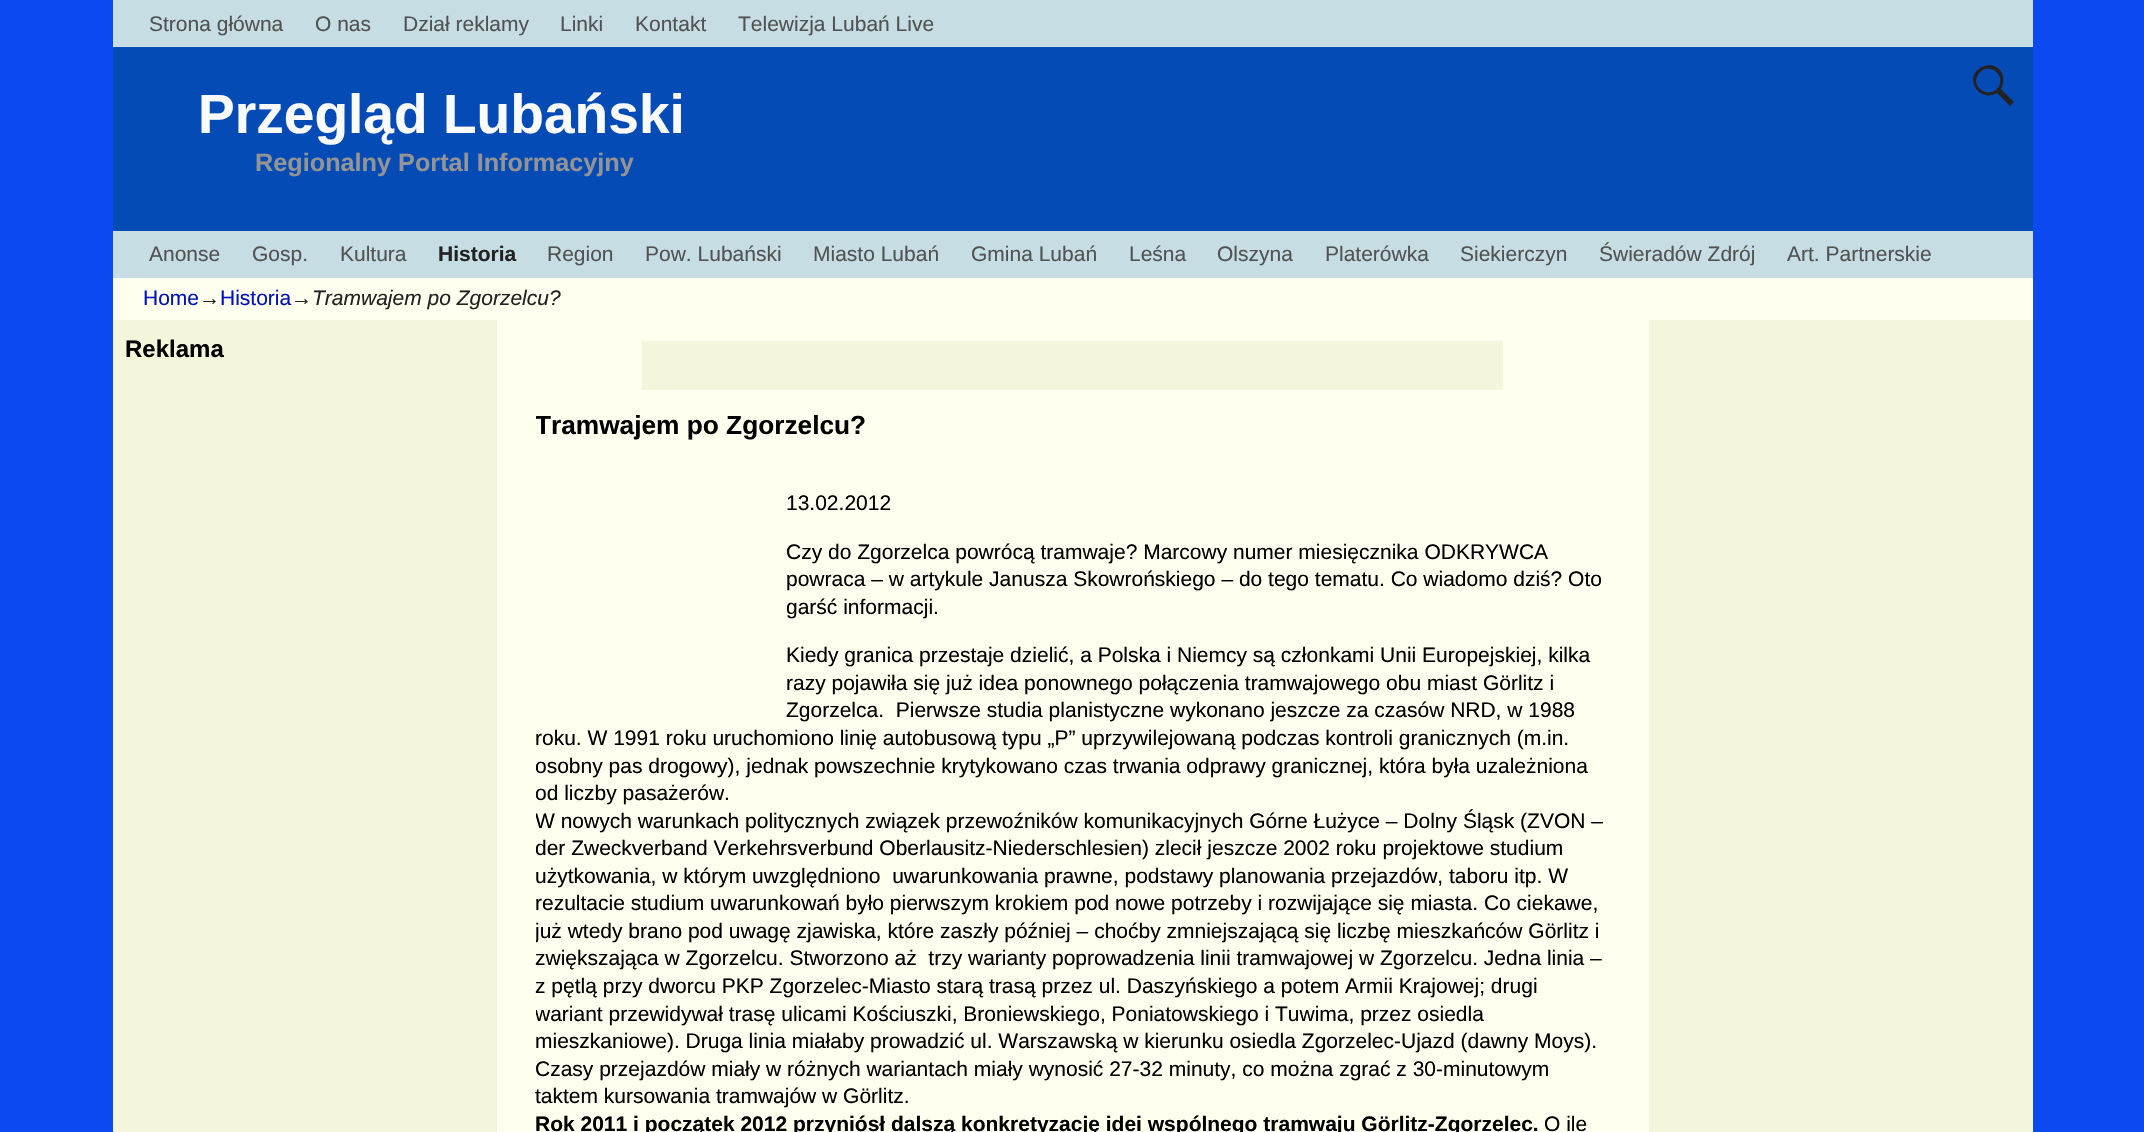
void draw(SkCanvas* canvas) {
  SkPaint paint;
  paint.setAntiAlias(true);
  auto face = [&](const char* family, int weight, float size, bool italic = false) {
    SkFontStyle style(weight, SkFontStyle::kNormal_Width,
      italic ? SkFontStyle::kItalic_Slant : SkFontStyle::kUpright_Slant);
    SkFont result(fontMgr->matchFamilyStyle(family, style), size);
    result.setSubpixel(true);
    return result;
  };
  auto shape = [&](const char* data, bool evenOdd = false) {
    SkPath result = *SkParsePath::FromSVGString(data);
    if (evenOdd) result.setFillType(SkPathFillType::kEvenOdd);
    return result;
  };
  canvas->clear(0xff0c49f0);
  paint.setColor(0xff044bb5);
  canvas->drawRect(SkRect::MakeXYWH(113, 47, 1920, 184), paint);
  paint.setColor(0xffc5dde3);
  canvas->drawRect(SkRect::MakeXYWH(113, 0, 1920, 47), paint);
  paint.setColor(0xff222222);
  canvas->drawPath(shape("M2014 102L2010 106L1997 93C1990 98 1979 95 1975 87C1965 68 1997 55 2003 76C2004 81 2003 86 2001 89ZM1978 75C1970 88 1991 100 1999 86C2006 73 1986 61 1978 75Z"), paint);
  {
    const struct { float x, y, w, h; SkColor color; } items[] = {
      {113, 231, 1920, 47, 0xffc5dde3},
      {113, 278, 1920, 854, 0xfffffff0},
      {113, 320, 384, 812, 0xfff5f5dc},
      {1649, 320, 384, 812, 0xfff5f5dc},
      {642, 341, 861, 49, 0xfff5f5dc},
    };
    for (auto [x, y, w, h, color] : items) {
      paint.setColor(color);
      canvas->drawRect(SkRect::MakeXYWH(x, y, w, h), paint);
    }
  }
  auto f0 = face("Liberation Sans", 400, 21);
  paint.setColor(0xff525252);
  {
    const struct { const char* s; float x, y; } items[] = {
      {"Strona główna", 149, 31},
      {"O nas", 315, 31},
      {"Dział reklamy", 403, 31},
      {"Linki", 560, 31},
      {"Kontakt", 635, 31},
      {"Telewizja Lubań Live", 738, 31},
    };
    for (auto [s, x, y] : items) {
      canvas->drawString(s, x, y, f0, paint);
    }
  }
  auto f1 = face("Liberation Sans", 700, 55.1f);
  paint.setColor(0xfffafafa);
  canvas->drawString("Przegląd Lubański", 198, 133, f1, paint);
  auto f2 = face("Liberation Sans", 700, 25.25f);
  paint.setColor(0xff949494);
  canvas->drawString("Regionalny Portal Informacyjny", 255, 171, f2, paint);
  paint.setColor(0xff525252);
  {
    const struct { const char* s; float x, y; } items[] = {
      {"Anonse", 149, 261},
      {"Gosp.", 252, 261},
      {"Kultura", 340, 261},
    };
    for (auto [s, x, y] : items) {
      canvas->drawString(s, x, y, f0, paint);
    }
  }
  auto f3 = face("Liberation Sans", 700, 21);
  paint.setColor(0xff222222);
  canvas->drawString("Historia", 438, 261, f3, paint);
  paint.setColor(0xff525252);
  {
    const struct { const char* s; float x, y; } items[] = {
      {"Region", 547, 261},
      {"Pow. Lubański", 645, 261},
      {"Miasto Lubań", 813, 261},
      {"Gmina Lubań", 971, 261},
      {"Leśna", 1129, 261},
      {"Olszyna", 1217, 261},
      {"Platerówka", 1325, 261},
      {"Siekierczyn", 1460, 261},
      {"Świeradów Zdrój", 1599, 261},
      {"Art. Partnerskie", 1787, 261},
    };
    for (auto [s, x, y] : items) {
      canvas->drawString(s, x, y, f0, paint);
    }
  }
  paint.setColor(0xff0011bb);
  canvas->drawString("Home", 143, 305, f0, paint);
  paint.setColor(0xff222222);
  canvas->drawString("→", 199, 305, f0, paint);
  paint.setColor(0xff0011bb);
  canvas->drawString("Historia", 220, 305, f0, paint);
  paint.setColor(0xff222222);
  canvas->drawString("→", 291, 305, f0, paint);
  auto f4 = face("Liberation Sans", 400, 21, true);
  canvas->drawString("Tramwajem po Zgorzelcu?", 312, 305, f4, paint);
  auto f5 = face("Liberation Sans", 700, 24);
  paint.setColor(0xff000000);
  canvas->drawString("Reklama", 125, 357, f5, paint);
  canvas->save();
  canvas->clipRect(SkRect::MakeXYWH(536, 405, 1074, 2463));
  auto f6 = face("Liberation Sans", 700, 26.25f);
  canvas->drawString("Tramwajem po Zgorzelcu?", 535, 434, f6, paint);
  canvas->restore();
  {
    const struct { const char* s; float x, y; } items[] = {
      {"13.02.2012", 786, 510},
      {"Czy do Zgorzelca powrócą tramwaje? Marcowy numer miesięcznika ODKRYWCA", 786, 559},
      {"powraca – w artykule Janusza Skowrońskiego – do tego tematu. Co wiadomo dziś? Oto", 786, 586},
      {"garść informacji.", 786, 614},
      {"Kiedy granica przestaje dzielić, a Polska i Niemcy są członkami Unii Europejskiej, kilka", 786, 662},
      {"razy pojawiła się już idea ponownego połączenia tramwajowego obu miast Görlitz i", 786, 690},
      {"Zgorzelca.  Pierwsze studia planistyczne wykonano jeszcze za czasów NRD, w 1988", 786, 717},
      {"roku. W 1991 roku uruchomiono linię autobusową typu „P” uprzywilejowaną podczas kontroli granicznych (m.in.", 535, 745},
    };
    for (auto [s, x, y] : items) {
      canvas->drawString(s, x, y, f0, paint);
    }
  }
  canvas->save();
  canvas->clipRect(SkRect::MakeXYWH(536, 405, 1074, 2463));
  {
    const struct { const char* s; float x, y; } items[] = {
      {"osobny pas drogowy), jednak powszechnie krytykowano czas trwania odprawy granicznej, która była uzależniona", 535, 773},
      {"od liczby pasażerów.", 535, 800},
      {"W nowych warunkach politycznych związek przewoźników komunikacyjnych Górne Łużyce – Dolny Śląsk (ZVON –", 535, 828},
      {"der Zweckverband Verkehrsverbund Oberlausitz-Niederschlesien) zlecił jeszcze 2002 roku projektowe studium", 535, 855},
    };
    for (auto [s, x, y] : items) {
      canvas->drawString(s, x, y, f0, paint);
    }
  }
  canvas->restore();
  canvas->drawString("użytkowania, w którym uwzględniono  uwarunkowania prawne, podstawy planowania przejazdów, taboru itp. W", 535, 883, f0, paint);
  canvas->drawString("rezultacie studium uwarunkowań było pierwszym krokiem pod nowe potrzeby i rozwijające się miasta. Co ciekawe,", 535, 910, f0, paint);
  canvas->save();
  canvas->clipRect(SkRect::MakeXYWH(536, 405, 1074, 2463));
  canvas->drawString("już wtedy brano pod uwagę zjawiska, które zaszły później – choćby zmniejszającą się liczbę mieszkańców Görlitz i", 535, 938, f0, paint);
  canvas->restore();
  canvas->drawString("zwiększająca w Zgorzelcu. Stworzono aż  trzy warianty poprowadzenia linii tramwajowej w Zgorzelcu. Jedna linia –", 535, 965, f0, paint);
  canvas->drawString("z pętlą przy dworcu PKP Zgorzelec-Miasto starą trasą przez ul. Daszyńskiego a potem Armii Krajowej; drugi", 535, 993, f0, paint);
  canvas->save();
  canvas->clipRect(SkRect::MakeXYWH(536, 405, 1074, 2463));
  canvas->drawString("wariant przewidywał trasę ulicami Kościuszki, Broniewskiego, Poniatowskiego i Tuwima, przez osiedla", 535, 1021, f0, paint);
  canvas->restore();
  {
    const struct { const char* s; float x, y; } items[] = {
      {"mieszkaniowe). Druga linia miałaby prowadzić ul. Warszawską w kierunku osiedla Zgorzelec-Ujazd (dawny Moys).", 535, 1048},
      {"Czasy przejazdów miały w różnych wariantach miały wynosić 27-32 minuty, co można zgrać z 30-minutowym", 535, 1076},
      {"taktem kursowania tramwajów w Görlitz.", 535, 1103},
    };
    for (auto [s, x, y] : items) {
      canvas->drawString(s, x, y, f0, paint);
    }
  }
  canvas->drawString("Rok 2011 i początek 2012 przyniósł dalszą konkretyzację idei wspólnego tramwaju Görlitz-Zgorzelec.", 535, 1131, f3, paint);
  canvas->drawString("O ile", 1544, 1131, f0, paint);
}
